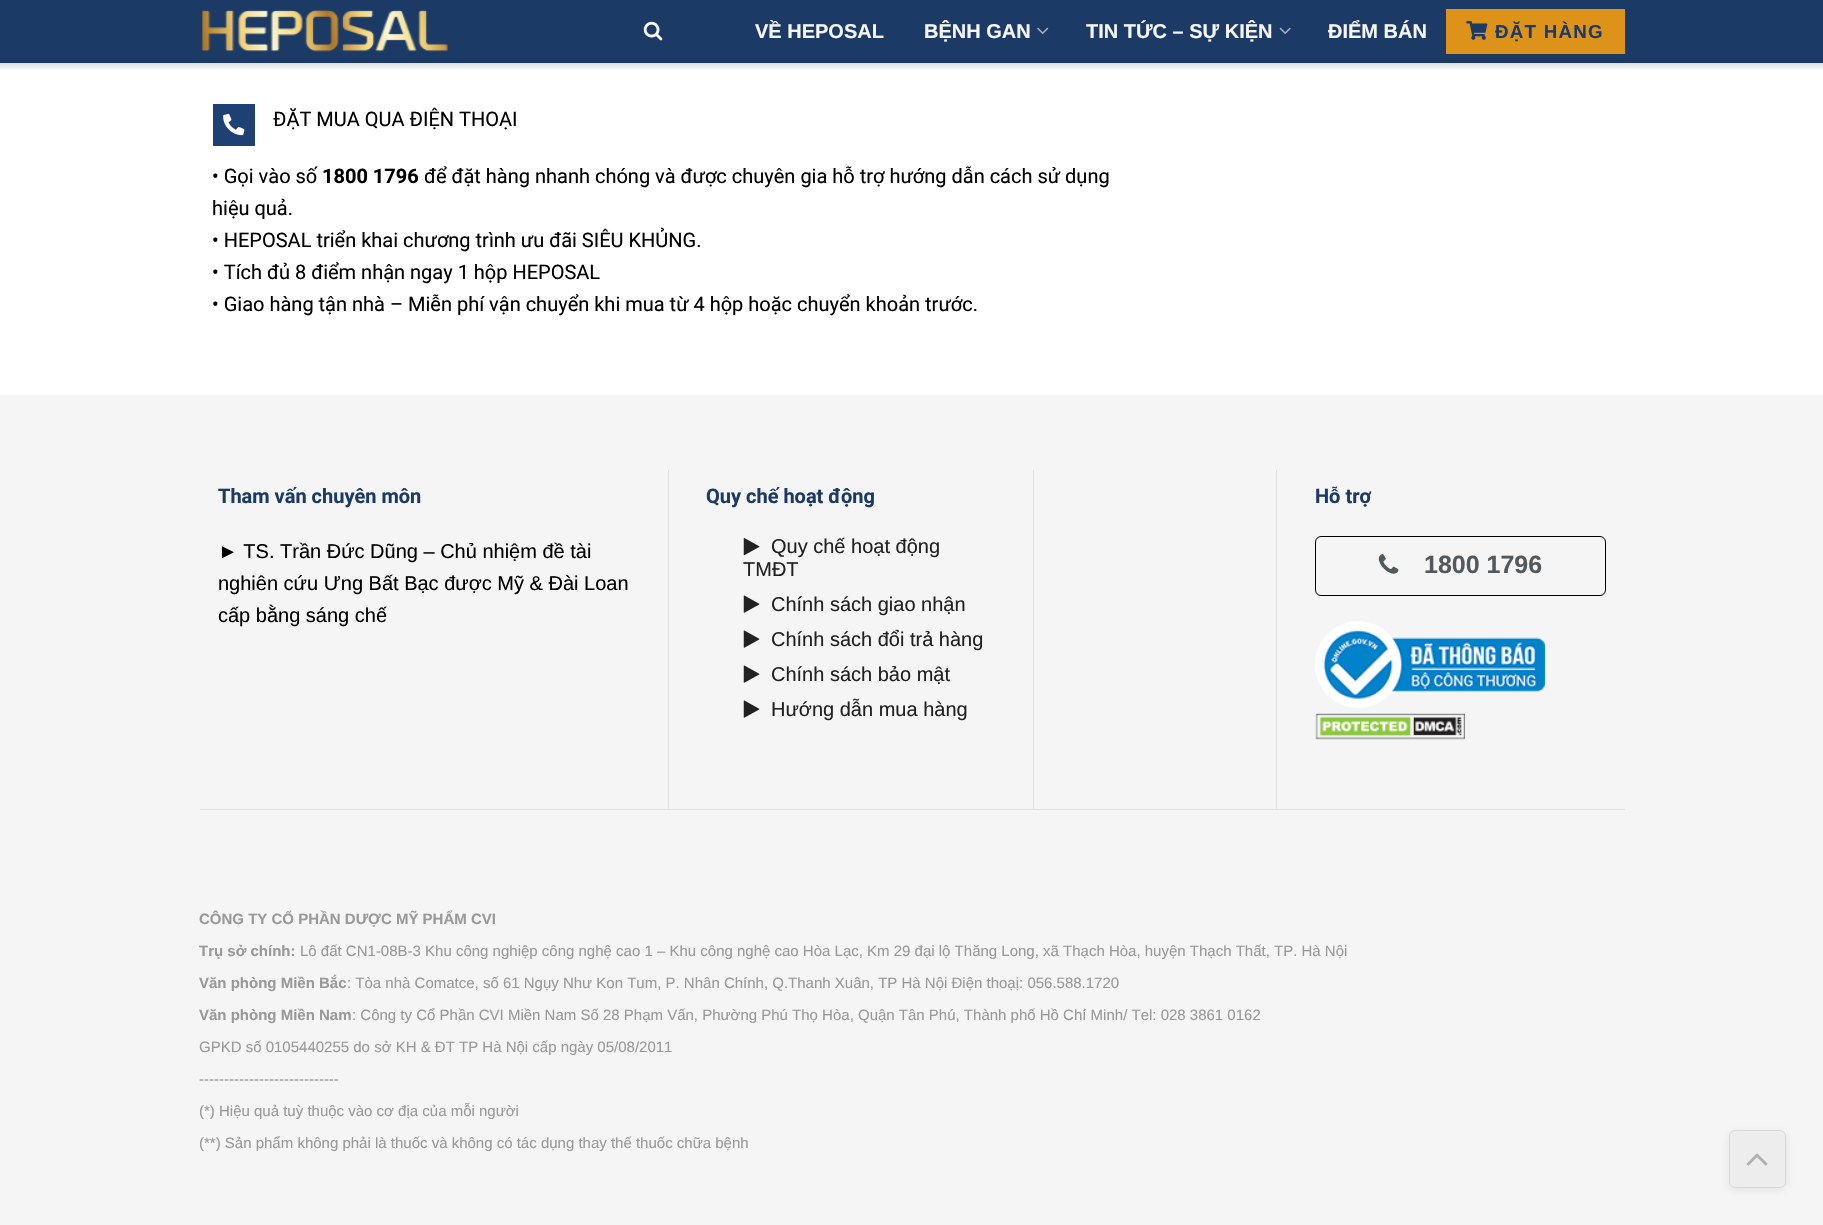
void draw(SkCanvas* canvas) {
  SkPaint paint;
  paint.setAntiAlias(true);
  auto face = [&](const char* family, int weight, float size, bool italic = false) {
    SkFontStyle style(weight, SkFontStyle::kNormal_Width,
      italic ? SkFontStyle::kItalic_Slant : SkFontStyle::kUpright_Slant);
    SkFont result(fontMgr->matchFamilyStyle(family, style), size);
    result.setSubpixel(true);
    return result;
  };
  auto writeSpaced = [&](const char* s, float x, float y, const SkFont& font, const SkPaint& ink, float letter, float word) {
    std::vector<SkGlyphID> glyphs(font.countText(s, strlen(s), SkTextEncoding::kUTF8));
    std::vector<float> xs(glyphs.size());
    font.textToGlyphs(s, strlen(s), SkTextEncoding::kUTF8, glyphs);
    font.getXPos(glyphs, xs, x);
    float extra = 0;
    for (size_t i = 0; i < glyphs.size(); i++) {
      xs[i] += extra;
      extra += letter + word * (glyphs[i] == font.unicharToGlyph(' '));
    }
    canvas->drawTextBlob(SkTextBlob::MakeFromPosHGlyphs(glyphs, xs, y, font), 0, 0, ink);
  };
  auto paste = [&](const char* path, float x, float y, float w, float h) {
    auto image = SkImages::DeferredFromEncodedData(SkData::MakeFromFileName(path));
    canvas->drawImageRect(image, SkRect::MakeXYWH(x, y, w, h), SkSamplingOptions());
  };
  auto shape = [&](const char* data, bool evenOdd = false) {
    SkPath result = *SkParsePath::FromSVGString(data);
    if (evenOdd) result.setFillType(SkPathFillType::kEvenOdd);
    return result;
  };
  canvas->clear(0xffffffff);
  paint.setColor(0xff1b3a66);
  canvas->drawRect(SkRect::MakeXYWH(0, 0, 1823, 63), paint);
  paste("img/1.png", 201, 9, 247, 43);
  paste("img/2.png", 643, 21, 20, 20);
  paste("img/3.png", 1037, 27, 12, 8);
  paste("img/4.png", 1279, 27, 12, 8);
  paint.setColor(0xffdd931a);
  canvas->drawRect(SkRect::MakeXYWH(1446, 9, 179, 45), paint);
  paste("img/5.png", 1466, 21, 22, 19);
  {
    const SkColor colors[] = {0xffd9d9d9, 0xffffffff};
    const float stops[] = {0, 1};
    const SkPoint ends[] = {{912, 62}, {912, 71}};
    paint.setShader(SkGradientShader::MakeLinear(ends, colors, stops, 2, SkTileMode::kClamp));
    paint.setAlpha(255);
  }
  canvas->drawRect(SkRect::MakeXYWH(0, 63, 1823, 7), paint);
  paint.setShader(nullptr);
  paint.setColor(0xff1f4075);
  canvas->drawRect(SkRect::MakeXYWH(213, 104, 42, 42), paint);
  paste("img/6.png", 223, 113, 22, 23);
  {
    const struct { float x, y, w, h; SkColor color; } items[] = {
      {0, 395, 1823, 830, 0xfff5f5f5},
      {668, 470, 1, 339, 0xffe0e0e0},
      {1033, 470, 1, 339, 0xffe0e0e0},
    };
    for (auto [x, y, w, h, color] : items) {
      paint.setColor(color);
      canvas->drawRect(SkRect::MakeXYWH(x, y, w, h), paint);
    }
  }
  paste("img/7.png", 743, 538, 17, 18);
  paste("img/8.png", 743, 595, 17, 18);
  paste("img/8.png", 743, 630, 17, 18);
  paste("img/8.png", 743, 665, 17, 18);
  paste("img/8.png", 743, 700, 17, 18);
  canvas->drawRect(SkRect::MakeXYWH(1276, 470, 1, 339), paint);
  paint.setStroke(true);
  paint.setStrokeWidth(1);
  paint.setColor(0xff000000);
  canvas->drawRoundRect(SkRect::MakeXYWH(1315.5f, 536.5f, 290, 59), 5.5f, 5.5f, paint);
  paste("img/9.png", 1378, 554, 21, 20);
  paste("img/10.png", 1315, 621, 230, 87);
  paste("img/11.png", 1315, 713, 150, 27);
  paint.setStroke(false);
  paint.setColor(0xffe0e0e0);
  canvas->drawRect(SkRect::MakeXYWH(200, 809, 1425, 1), paint);
  canvas->save();
  canvas->clipPath(shape("M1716 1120H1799V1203H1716ZM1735 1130H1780C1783.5 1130 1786 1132.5 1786 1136V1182C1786 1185.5 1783.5 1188 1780 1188H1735C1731.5 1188 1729 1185.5 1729 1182V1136C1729 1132.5 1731.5 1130 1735 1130Z", true), true);
  paint.setColor(0x1a313131);
  paint.setMaskFilter(SkMaskFilter::MakeBlur(kNormal_SkBlurStyle, 4));
  canvas->drawRoundRect(SkRect::MakeXYWH(1729, 1133, 57, 57), 6, 6, paint);
  paint.setMaskFilter(nullptr);
  canvas->restore();
  paint.setColor(0x26c1c1c1);
  canvas->drawRoundRect(SkRect::MakeXYWH(1729, 1130, 57, 58), 6, 6, paint);
  paint.setStroke(true);
  paint.setColor(0x1c313131);
  canvas->drawRoundRect(SkRect::MakeXYWH(1729.5f, 1130.5f, 56, 57), 5.5f, 5.5f, paint);
  paste("img/12.png", 1746, 1153, 22, 13);
  auto f0 = face("Liberation Sans", 700, 20);
  paint.setStroke(false);
  paint.setColor(0xfff5f5f5);
  {
    const struct { const char* s; float x, y; } items[] = {
      {"VỀ HEPOSAL", 755, 38},
      {"BỆNH GAN", 924, 38},
      {"TIN TỨC – SỰ KIỆN", 1086, 38},
      {"ĐIỂM BÁN", 1328, 38},
    };
    for (auto [s, x, y] : items) {
      canvas->drawString(s, x, y, f0, paint);
    }
  }
  auto f1 = face("Liberation Sans", 700, 18.75f);
  paint.setColor(0xff1b3a66);
  writeSpaced("ĐẶT HÀNG", 1495, 38, f1, paint, 1.25f, 0);
  auto f2 = face("Roboto", 400, 20);
  paint.setColor(0xff000000);
  canvas->drawString("ĐẶT MUA QUA ĐIỆN THOẠI", 273, 126, f2, paint);
  canvas->drawString("• Gọi vào số", 212, 183, f2, paint);
  auto f3 = face("Roboto", 700, 20);
  canvas->drawString("1800 1796", 322, 183, f3, paint);
  {
    const struct { const char* s; float x, y; } items[] = {
      {"để đặt hàng nhanh chóng và được chuyên gia hỗ trợ hướng dẫn cách sử dụng", 424, 183},
      {"hiệu quả.", 212, 215},
      {"• HEPOSAL triển khai chương trình ưu đãi SIÊU KHỦNG.", 212, 247},
      {"• Tích đủ 8 điểm nhận ngay 1 hộp HEPOSAL", 212, 279},
      {"• Giao hàng tận nhà – Miễn phí vận chuyển khi mua từ 4 hộp hoặc chuyển khoản trước.", 212, 311},
    };
    for (auto [s, x, y] : items) {
      canvas->drawString(s, x, y, f2, paint);
    }
  }
  paint.setColor(0xff1b3a66);
  canvas->drawString("Tham vấn chuyên môn", 218, 503, f3, paint);
  auto f4 = face("Liberation Sans", 400, 20);
  paint.setColor(0xff000000);
  {
    const struct { const char* s; float x, y; } items[] = {
      {"► TS. Trần Đức Dũng – Chủ nhiệm đề tài", 218, 558},
      {"nghiên cứu Ưng Bất Bạc được Mỹ & Đài Loan", 218, 590},
      {"cấp bằng sáng chế", 218, 622},
    };
    for (auto [s, x, y] : items) {
      canvas->drawString(s, x, y, f4, paint);
    }
  }
  paint.setColor(0xff1b3a66);
  canvas->drawString("Quy chế hoạt động", 706, 503, f3, paint);
  paint.setColor(0xff212121);
  {
    const struct { const char* s; float x, y; } items[] = {
      {"Quy chế hoạt động", 771, 553},
      {"TMĐT", 743, 576},
      {"Chính sách giao nhận", 771, 611},
      {"Chính sách đổi trả hàng", 771, 646},
      {"Chính sách bảo mật", 771, 681},
      {"Hướng dẫn mua hàng", 771, 716},
    };
    for (auto [s, x, y] : items) {
      canvas->drawString(s, x, y, f4, paint);
    }
  }
  paint.setColor(0xff1b3a66);
  canvas->drawString("Hỗ trợ", 1315, 503, f3, paint);
  auto f5 = face("Liberation Sans", 700, 25);
  paint.setColor(0xff53585c);
  canvas->drawString("1800 1796", 1424, 573, f5, paint);
  auto f6 = face("Liberation Sans", 700, 15);
  paint.setColor(0xff999999);
  canvas->drawString("CÔNG TY CỔ PHẦN DƯỢC MỸ PHẨM CVI", 199, 924, f6, paint);
  canvas->drawString("Trụ sở chính:", 199, 956, f6, paint);
  auto f7 = face("Liberation Sans", 400, 15);
  canvas->drawString("Lô đất CN1-08B-3 Khu công nghiệp công nghệ cao 1 – Khu công nghệ cao Hòa Lạc, Km 29 đại lộ Thăng Long, xã Thạch Hòa, huyện Thạch Thất, TP. Hà Nội", 300, 956, f7, paint);
  canvas->drawString("Văn phòng Miền Bắc", 199, 988, f6, paint);
  canvas->drawString(": Tòa nhà Comatce, số 61 Ngụy Như Kon Tum, P. Nhân Chính, Q.Thanh Xuân, TP Hà Nội Điện thoạị: 056.588.1720", 347, 988, f7, paint);
  canvas->drawString("Văn phòng Miền Nam", 199, 1020, f6, paint);
  {
    const struct { const char* s; float x, y; } items[] = {
      {": Công ty Cổ Phần CVI Miền Nam Số 28 Phạm Vấn, Phường Phú Thọ Hòa, Quận Tân Phú, Thành phố Hồ Chí Minh/ Tel: 028 3861 0162", 352, 1020},
      {"GPKD số 0105440255 do sở KH & ĐT TP Hà Nội cấp ngày 05/08/2011", 199, 1052},
      {"----------------------------", 199, 1084},
      {"(*) Hiệu quả tuỳ thuộc vào cơ địa của mỗi người", 199, 1116},
      {"(**) Sản phẩm không phải là thuốc và không có tác dụng thay thế thuốc chữa bệnh", 199, 1148},
    };
    for (auto [s, x, y] : items) {
      canvas->drawString(s, x, y, f7, paint);
    }
  }
}
